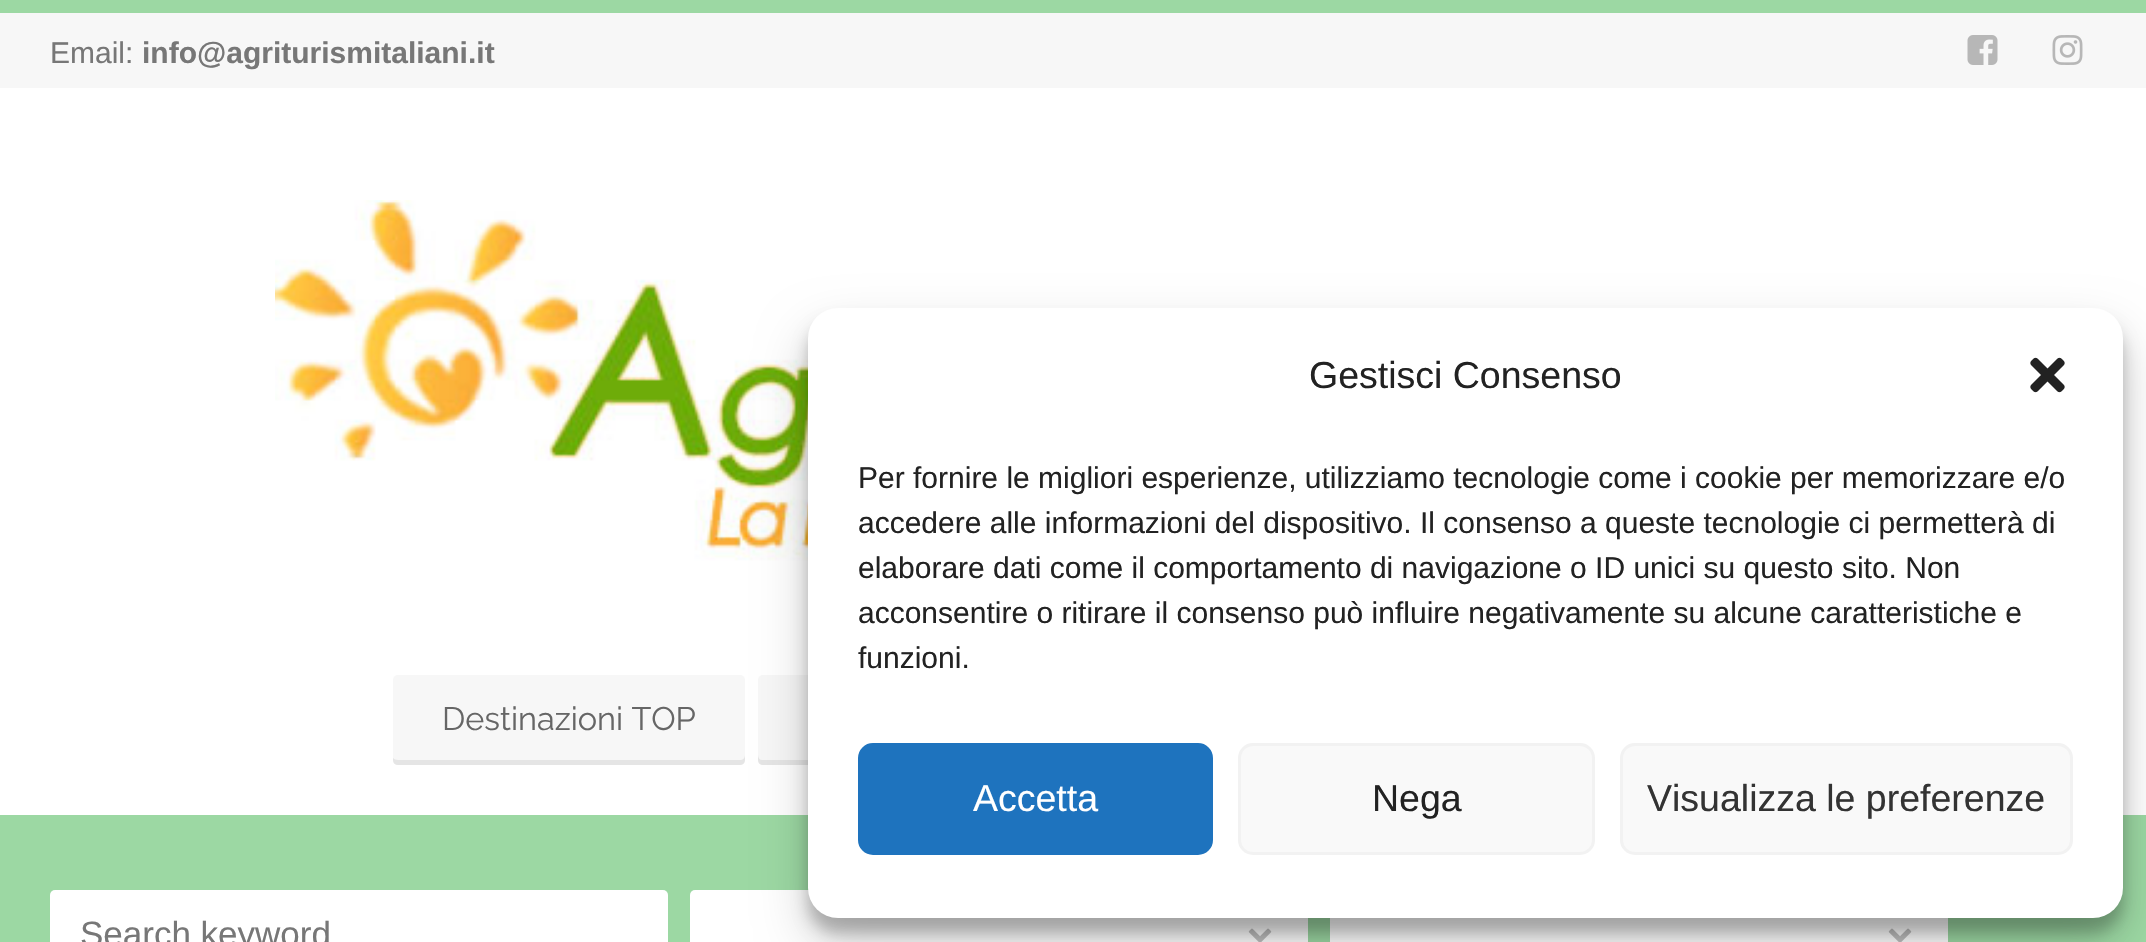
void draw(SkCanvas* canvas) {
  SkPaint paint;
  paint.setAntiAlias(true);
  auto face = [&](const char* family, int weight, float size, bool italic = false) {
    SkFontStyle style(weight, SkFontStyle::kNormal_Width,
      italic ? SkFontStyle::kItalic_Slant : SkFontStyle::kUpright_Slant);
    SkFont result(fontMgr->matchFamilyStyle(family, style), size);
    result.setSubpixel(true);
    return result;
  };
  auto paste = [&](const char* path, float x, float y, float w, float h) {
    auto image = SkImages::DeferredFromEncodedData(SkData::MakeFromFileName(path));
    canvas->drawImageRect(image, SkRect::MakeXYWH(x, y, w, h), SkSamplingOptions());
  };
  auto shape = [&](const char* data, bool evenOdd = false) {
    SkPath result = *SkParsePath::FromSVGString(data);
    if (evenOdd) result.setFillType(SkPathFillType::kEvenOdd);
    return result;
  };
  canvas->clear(0xffffffff);
  paint.setColor(0xfff7f7f7);
  canvas->drawRect(SkRect::MakeXYWH(0, 13, 2146, 75), paint);
  paint.setColor(0xff9cd8a3);
  canvas->drawRect(SkRect::MakeXYWH(0, 0, 2146, 13), paint);
  paste("img/1.png", 1967, 35, 31, 30);
  paste("img/2.png", 2052, 35, 31, 30);
  paste("img/3.png", 275, 200, 1580, 375);
  paint.setColor(0xfff7f7f7);
  canvas->drawRoundRect(SkRect::MakeXYWH(393, 675, 352, 90), 5, 5, paint);
  paint.setColor(0x12000000);
  canvas->drawPath(shape("M393 758V760C393 763 395 765 398 765H740C743 765 745 763 745 760V755C745 758 743 760 740 760H398C396 760 394 759 393 758Z"), paint);
  paint.setColor(0xfff7f7f7);
  canvas->drawRoundRect(SkRect::MakeXYWH(758, 675, 377, 90), 5, 5, paint);
  paint.setColor(0x12000000);
  canvas->drawPath(shape("M758 755V760C758 763 760 765 763 765H1130C1133 765 1135 763 1135 760V755C1135 758 1133 760 1130 760H762C760 760 758 758 758 755Z"), paint);
  paint.setColor(0xff9cd8a3);
  canvas->drawRect(SkRect::MakeXYWH(0, 815, 2146, 127), paint);
  paint.setColor(0xffffffff);
  canvas->drawRoundRect(SkRect::MakeXYWH(50, 890, 618, 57), 5, 5, paint);
  canvas->drawRoundRect(SkRect::MakeXYWH(690, 890, 618, 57), 5, 5, paint);
  paste("img/4.png", 1248, 928, 24, 14);
  canvas->drawRect(SkRect::MakeXYWH(1330, 918, 618, 24), paint);
  paste("img/4.png", 1888, 928, 24, 14);
  paint.setColor(0x3b000000);
  paint.setMaskFilter(SkMaskFilter::MakeBlur(kNormal_SkBlurStyle, 7.5f));
  canvas->drawRoundRect(SkRect::MakeXYWH(808, 323, 1315, 610), 30, 30, paint);
  paint.setMaskFilter(nullptr);
  paint.setColor(0x30000000);
  paint.setMaskFilter(SkMaskFilter::MakeBlur(kNormal_SkBlurStyle, 25));
  canvas->drawRoundRect(SkRect::MakeXYWH(808, 333, 1315, 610), 30, 30, paint);
  paint.setMaskFilter(nullptr);
  paint.setColor(0xffffffff);
  canvas->drawRoundRect(SkRect::MakeXYWH(808, 308, 1315, 610), 30, 30, paint);
  paste("img/5.png", 2030, 357, 35, 36);
  paint.setColor(0xff1e73be);
  canvas->drawRoundRect(SkRect::MakeXYWH(859.5f, 744.5f, 352, 109), 13.5f, 13.5f, paint);
  paint.setStroke(true);
  paint.setStrokeWidth(3);
  canvas->drawRoundRect(SkRect::MakeXYWH(859.5f, 744.5f, 352, 109), 13.5f, 13.5f, paint);
  paint.setStroke(false);
  paint.setColor(0xfff9f9f9);
  canvas->drawRoundRect(SkRect::MakeXYWH(1239.5f, 744.5f, 354, 109), 13.5f, 13.5f, paint);
  paint.setStroke(true);
  paint.setColor(0xfff2f2f2);
  canvas->drawRoundRect(SkRect::MakeXYWH(1239.5f, 744.5f, 354, 109), 13.5f, 13.5f, paint);
  paint.setStroke(false);
  paint.setColor(0xfff9f9f9);
  canvas->drawRoundRect(SkRect::MakeXYWH(1621.5f, 744.5f, 450, 109), 13.5f, 13.5f, paint);
  paint.setStroke(true);
  paint.setColor(0xfff2f2f2);
  canvas->drawRoundRect(SkRect::MakeXYWH(1621.5f, 744.5f, 450, 109), 13.5f, 13.5f, paint);
  auto f0 = face("Liberation Sans", 400, 30);
  paint.setStroke(false);
  paint.setColor(0xff777777);
  canvas->drawString("Email:", 50, 63, f0, paint);
  auto f1 = face("Liberation Sans", 700, 30);
  canvas->drawString("info@agriturismitaliani.it", 142, 63, f1, paint);
  auto f2 = face("Raleway", 400, 32.5f);
  paint.setColor(0xff666666);
  canvas->drawString("Destinazioni TOP", 442, 730, f2, paint);
  auto f3 = face("Liberation Sans", 400, 35);
  paint.setColor(0xff777777);
  canvas->drawString("Search keyword", 80, 946, f3, paint);
  auto f4 = face("Liberation Sans", 400, 37.5f);
  paint.setColor(0xff222222);
  canvas->drawString("Gestisci Consenso", 1309, 388, f4, paint);
  {
    const struct { const char* s; float x, y; } items[] = {
      {"Per fornire le migliori esperienze, utilizziamo tecnologie come i cookie per memorizzare e/o", 858, 488},
      {"accedere alle informazioni del dispositivo. Il consenso a queste tecnologie ci permetterà di", 858, 533},
      {"elaborare dati come il comportamento di navigazione o ID unici su questo sito. Non", 858, 578},
      {"acconsentire o ritirare il consenso può influire negativamente su alcune caratteristiche e", 858, 623},
      {"funzioni.", 858, 668},
    };
    for (auto [s, x, y] : items) {
      canvas->drawString(s, x, y, f0, paint);
    }
  }
  paint.setColor(0xffffffff);
  canvas->drawString("Accetta", 973, 811, f4, paint);
  paint.setColor(0xff222222);
  canvas->drawString("Nega", 1372, 811, f4, paint);
  paint.setColor(0xff333333);
  canvas->drawString("Visualizza le preferenze", 1647, 811, f4, paint);
}
